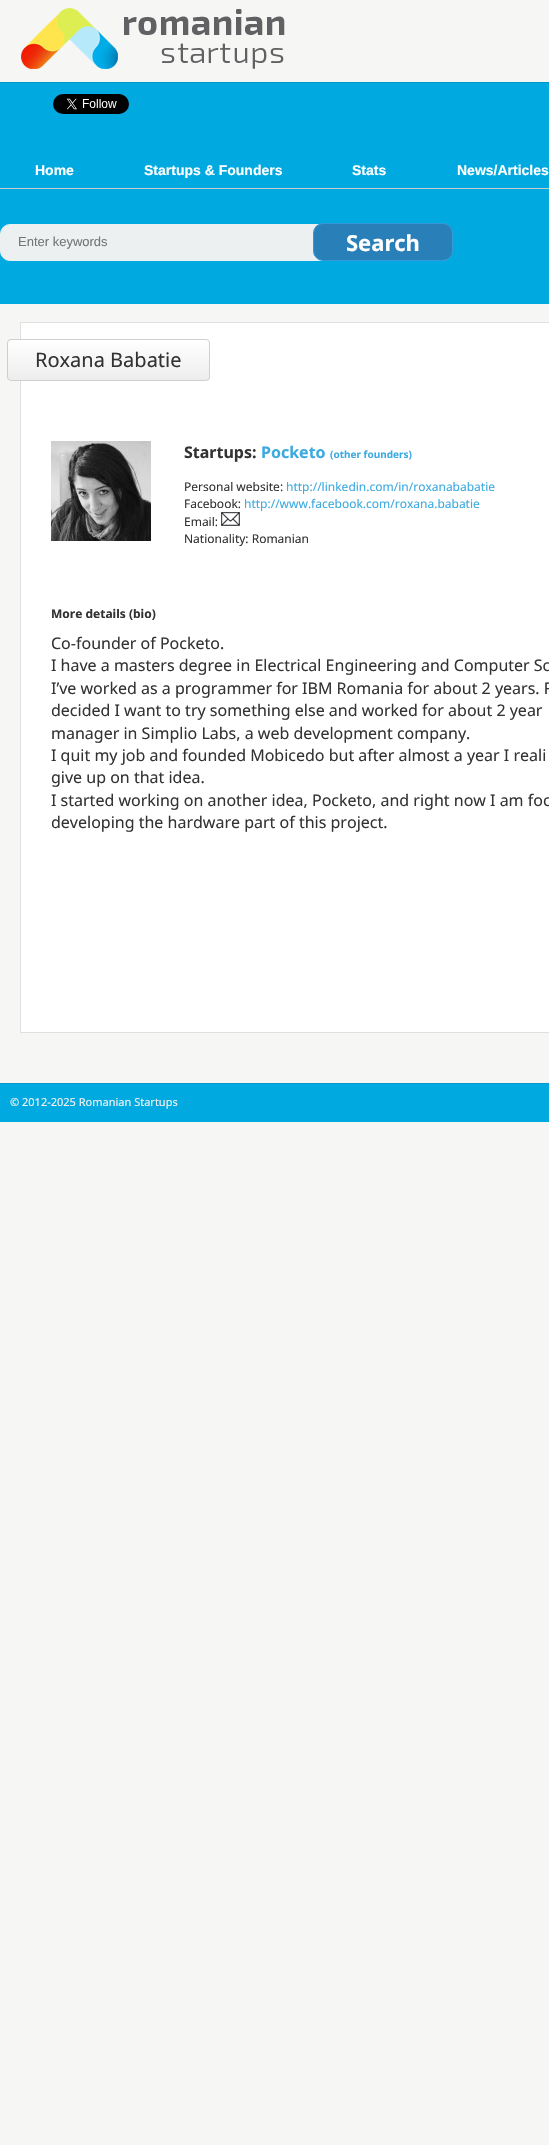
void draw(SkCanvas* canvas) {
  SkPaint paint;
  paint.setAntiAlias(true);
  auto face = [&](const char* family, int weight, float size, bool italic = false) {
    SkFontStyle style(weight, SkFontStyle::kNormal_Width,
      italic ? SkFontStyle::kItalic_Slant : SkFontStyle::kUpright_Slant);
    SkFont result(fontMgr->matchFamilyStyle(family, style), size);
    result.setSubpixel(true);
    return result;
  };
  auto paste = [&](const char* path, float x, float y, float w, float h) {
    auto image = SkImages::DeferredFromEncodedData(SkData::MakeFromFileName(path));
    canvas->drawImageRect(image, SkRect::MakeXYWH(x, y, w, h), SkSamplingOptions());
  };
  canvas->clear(0xfff6f6f5);
  paste("img/1.png", 21, 8, 264, 61);
  paint.setColor(0xff01a9e1);
  canvas->drawRect(SkRect::MakeXYWH(0, 83, 549, 221), paint);
  paint.setColor(0xff0198ca);
  canvas->drawRect(SkRect::MakeXYWH(0, 82, 549, 1), paint);
  paste("img/2.png", 53, 94, 76, 20);
  paint.setColor(0xffcccccc);
  canvas->drawRect(SkRect::MakeXYWH(0, 188, 549, 1), paint);
  paint.setColor(0xffecf0f1);
  canvas->drawRoundRect(SkRect::MakeXYWH(0.5f, 224.5f, 451, 36), 9.5f, 9.5f, paint);
  paint.setStroke(true);
  paint.setStrokeWidth(1);
  canvas->drawRoundRect(SkRect::MakeXYWH(0.5f, 224.5f, 451, 36), 9.5f, 9.5f, paint);
  paint.setStroke(false);
  paint.setColor(0xff2980b9);
  canvas->drawRoundRect(SkRect::MakeXYWH(313.5f, 223.5f, 139, 37), 9.5f, 9.5f, paint);
  paint.setStroke(true);
  paint.setColor(0xff3498db);
  canvas->drawRoundRect(SkRect::MakeXYWH(313.5f, 223.5f, 139, 37), 9.5f, 9.5f, paint);
  paint.setStroke(false);
  paint.setColor(0xffffffff);
  canvas->drawRect(SkRect::MakeXYWH(20.5f, 322.5f, 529, 710), paint);
  paint.setStroke(true);
  paint.setColor(0xffe1dfdf);
  canvas->drawRect(SkRect::MakeXYWH(20.5f, 322.5f, 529, 710), paint);
  paste("img/3.png", 7, 339, 203, 42);
  paint.setColor(0xffcfcfcf);
  canvas->drawRoundRect(SkRect::MakeXYWH(7.5f, 339.5f, 202, 41), 3.5f, 3.5f, paint);
  paste("img/4.png", 51, 441, 100, 100);
  paste("img/5.png", 221, 512, 19, 14);
  paint.setStroke(false);
  paint.setColor(0xff01a9e1);
  canvas->drawRect(SkRect::MakeXYWH(0, 1084, 549, 38), paint);
  paint.setColor(0xff0198ca);
  canvas->drawRect(SkRect::MakeXYWH(0, 1083, 549, 1), paint);
  auto f0 = face("Liberation Sans", 700, 14);
  paint.setColor(0xffffffff);
  {
    const struct { const char* s; float x, y; } items[] = {
      {"Home", 35, 175},
      {"Startups & Founders", 144, 175},
      {"Stats", 352, 175},
      {"News/Articles", 457, 175},
    };
    for (auto [s, x, y] : items) {
      canvas->drawString(s, x, y, f0, paint);
    }
  }
  auto f1 = face("Liberation Sans", 400, 13);
  paint.setColor(0xff757575);
  canvas->drawString("Enter keywords", 18, 246, f1, paint);
  auto f2 = face("Noto Sans", 700, 22);
  paint.setColor(0xffffffff);
  canvas->drawString("Search", 346, 251, f2, paint);
  auto f3 = face("Noto Sans", 400, 20);
  paint.setColor(0xff333333);
  canvas->drawString("Roxana Babatie", 35, 367, f3, paint);
  auto f4 = face("Noto Sans", 700, 16);
  canvas->drawString("Startups:", 184, 458, f4, paint);
  paint.setColor(0xff3caae0);
  canvas->drawString("Pocketo", 261, 458, f4, paint);
  auto f5 = face("Noto Sans", 700, 10);
  canvas->drawString("(other founders)", 330, 458, f5, paint);
  auto f6 = face("Noto Sans", 400, 12);
  paint.setColor(0xff333333);
  canvas->drawString("Personal website:", 184, 491, f6, paint);
  paint.setColor(0xff3caae0);
  canvas->drawString("http://linkedin.com/in/roxanababatie", 286, 491, f6, paint);
  paint.setColor(0xff333333);
  canvas->drawString("Facebook:", 184, 508, f6, paint);
  paint.setColor(0xff3caae0);
  canvas->drawString("http://www.facebook.com/roxana.babatie", 244, 508, f6, paint);
  paint.setColor(0xff333333);
  canvas->drawString("Email:", 184, 526, f6, paint);
  canvas->drawString("Nationality: Romanian", 184, 543, f6, paint);
  auto f7 = face("Noto Sans", 700, 12);
  canvas->drawString("More details (bio)", 51, 618, f7, paint);
  auto f8 = face("Noto Sans", 400, 16);
  {
    const struct { const char* s; float x, y; } items[] = {
      {"Co-founder of Pocketo.", 51, 649},
      {"I have a masters degree in Electrical Engineering and Computer Sc", 51, 671},
      {"I’ve worked as a programmer for IBM Romania for about 2 years. R", 51, 694},
      {"decided I want to try something else and worked for about 2 year", 51, 716},
      {"manager in Simplio Labs, a web development company.", 51, 739},
      {"I quit my job and founded Mobicedo but after almost a year I reali", 51, 761},
      {"give up on that idea.", 51, 783},
      {"I started working on another idea, Pocketo, and right now I am foc", 51, 806},
      {"developing the hardware part of this project.", 51, 828},
    };
    for (auto [s, x, y] : items) {
      canvas->drawString(s, x, y, f8, paint);
    }
  }
  auto f9 = face("Noto Sans", 400, 11);
  paint.setColor(0xfff3f1f1);
  canvas->drawString("© 2012-2025 Romanian Startups", 10, 1106, f9, paint);
}
